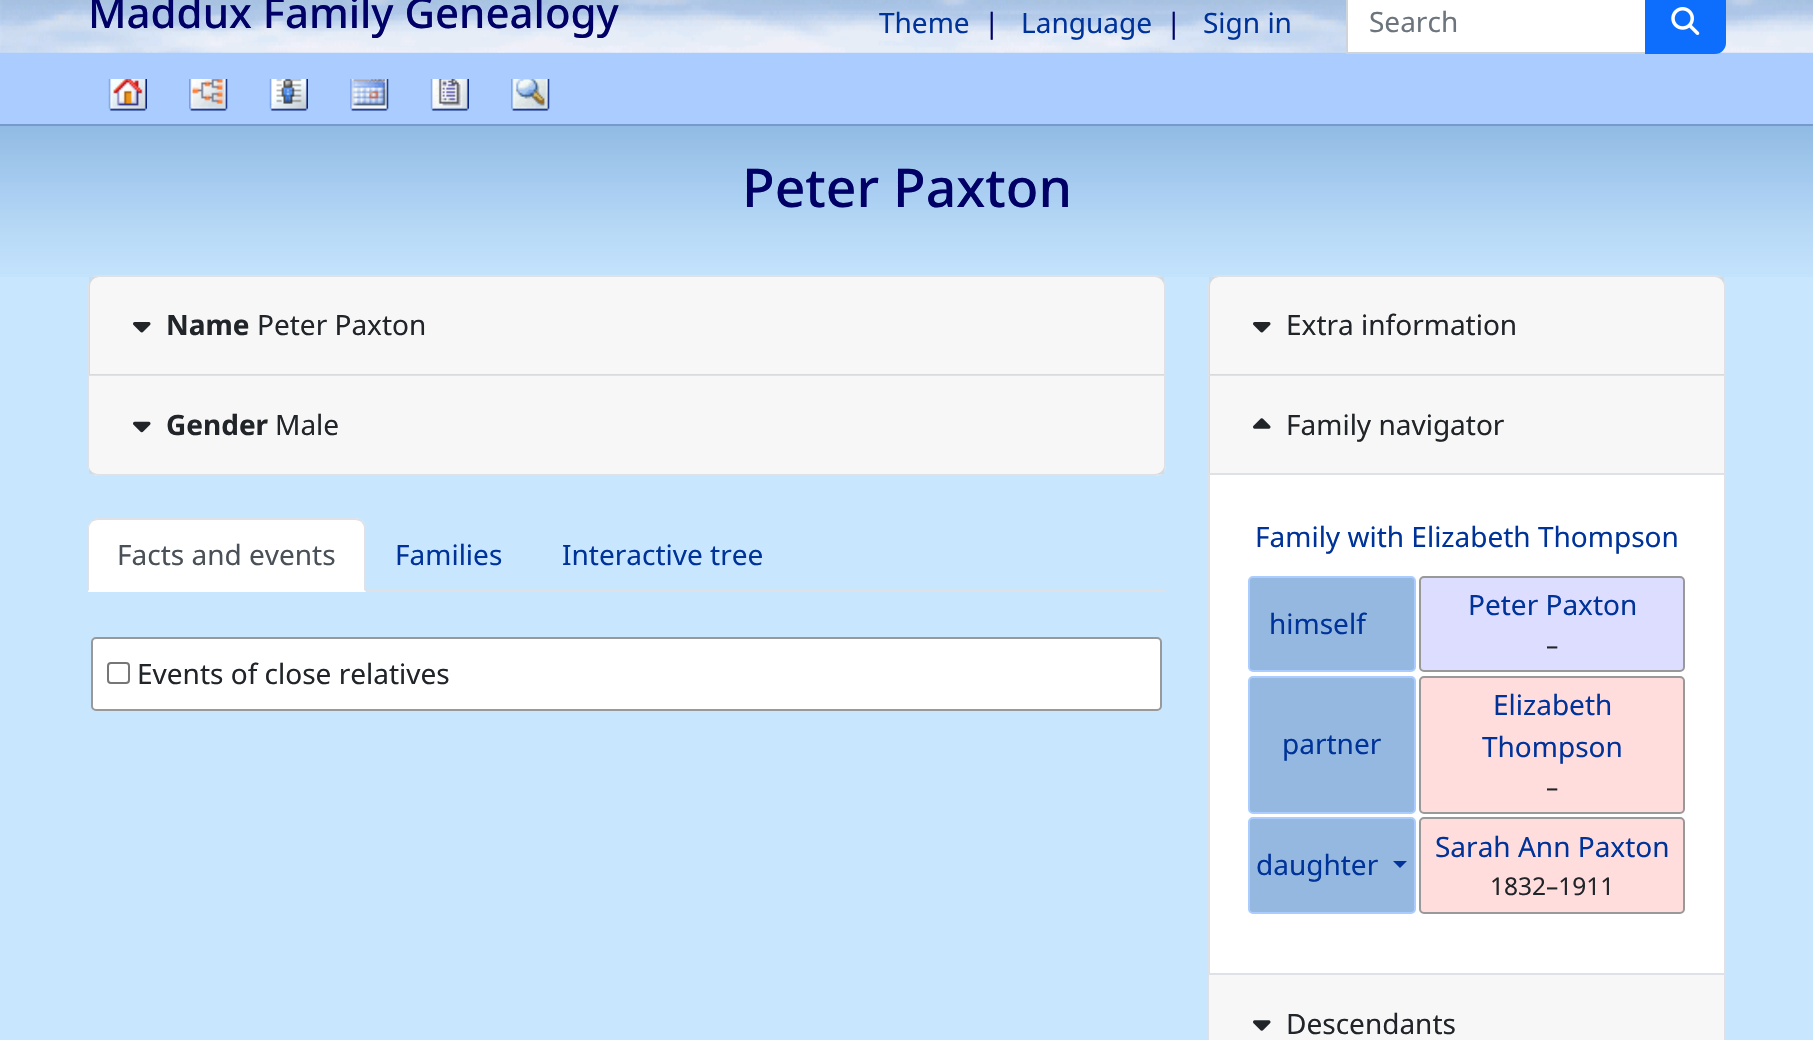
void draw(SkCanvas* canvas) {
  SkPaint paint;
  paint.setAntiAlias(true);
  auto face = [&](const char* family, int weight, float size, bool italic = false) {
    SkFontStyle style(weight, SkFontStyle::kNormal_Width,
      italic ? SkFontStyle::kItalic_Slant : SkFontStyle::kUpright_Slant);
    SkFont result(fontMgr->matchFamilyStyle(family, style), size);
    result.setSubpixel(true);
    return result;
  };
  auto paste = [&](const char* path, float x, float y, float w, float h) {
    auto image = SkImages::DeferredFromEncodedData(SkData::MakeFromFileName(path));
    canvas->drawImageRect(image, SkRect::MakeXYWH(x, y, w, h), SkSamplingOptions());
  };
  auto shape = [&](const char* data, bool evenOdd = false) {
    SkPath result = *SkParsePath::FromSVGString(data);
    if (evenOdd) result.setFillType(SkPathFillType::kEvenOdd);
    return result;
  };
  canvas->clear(0xffc8e7ff);
  paste("img/1.png", 0, 126, 1813, 151);
  paint.setColor(0xffaaccff);
  canvas->drawRect(SkRect::MakeXYWH(0, 52, 1813, 72), paint);
  paste("img/2.png", 0, 0, 1813, 53);
  paint.setColor(0xff7799cc);
  canvas->drawRect(SkRect::MakeXYWH(0, 124, 1813, 2), paint);
  paint.setColor(0xffffffff);
  canvas->drawRect(SkRect::MakeXYWH(1347, -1, 299, 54), paint);
  paint.setStroke(true);
  paint.setStrokeWidth(2);
  paint.setColor(0xffced4da);
  canvas->drawRect(SkRect::MakeXYWH(1347, -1, 299, 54), paint);
  paint.setStroke(false);
  paint.setColor(0xff0d6efd);
  canvas->drawPath(shape("M1646-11H1715C1720.5-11 1725-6.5 1725-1V43C1725 48.5 1720.5 53 1715 53H1646Z"), paint);
  paint.setStroke(true);
  canvas->drawPath(shape("M1646-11H1715C1720.5-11 1725-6.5 1725-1V43C1725 48.5 1720.5 53 1715 53H1646Z"), paint);
  paste("img/3.png", 1671, 7, 29, 28);
  paste("img/4.png", 108, 79, 39, 32);
  paste("img/5.png", 189, 79, 39, 32);
  paste("img/6.png", 269, 79, 39, 32);
  paste("img/7.png", 350, 79, 39, 32);
  paste("img/8.png", 430, 79, 39, 32);
  paste("img/9.png", 511, 79, 39, 32);
  paint.setStroke(false);
  paint.setColor(0xffffffff);
  canvas->drawPath(shape("M99 276H1155C1160.5 276 1165 280.5 1165 286V375H89V286C89 280.5 93.5 276 99 276Z"), paint);
  paint.setStroke(true);
  paint.setColor(0xffdee2e6);
  canvas->drawPath(shape("M99 276H1155C1160.5 276 1165 280.5 1165 286V375H89V286C89 280.5 93.5 276 99 276Z"), paint);
  paint.setStroke(false);
  paint.setColor(0x08000000);
  canvas->drawRect(SkRect::MakeXYWH(89, 277, 1075, 98), paint);
  paste("img/10.png", 133, 322, 18, 11);
  paint.setColor(0xffffffff);
  canvas->drawPath(shape("M88 376H1166V465C1166 471 1161 476 1155 476H99C93 476 88 471 88 465Z"), paint);
  paint.setColor(0xffdee2e6);
  canvas->drawPath(shape("M88 376H1166V466C1166 471 1161 476 1155 476H98C92 476 88 471 88 466ZM89 376H1164V466C1164 470 1160 474 1155 474H98C93 474 89 470 89 466Z", true), paint);
  paint.setColor(0x08000000);
  canvas->drawRect(SkRect::MakeXYWH(89, 376, 1075, 98), paint);
  paste("img/11.png", 133, 421, 18, 12);
  paint.setColor(0xffdee2e6);
  canvas->drawRect(SkRect::MakeXYWH(366, 590, 800, 2), paint);
  paint.setColor(0xffffffff);
  canvas->drawPath(shape("M99 518H355C361 518 366 523 366 529V592H88V529C88 523 93 518 99 518Z"), paint);
  paint.setColor(0xffdee2e6);
  canvas->drawPath(shape("M98 518C95 518 92 519 91 521L92 522C93 521 96 520 98 520H355C357 520 360 521 361 522L363 521C361 519 358 518 355 518Z"), paint);
  canvas->drawPath(shape("M363 521C364 522 365 524 366 526V592L364 590V528C364 526 363 524 361 522Z"), paint);
  paint.setColor(0xffffffff);
  canvas->drawPath(shape("M366 592H88L89 590H364Z"), paint);
  paint.setColor(0xffdee2e6);
  canvas->drawPath(shape("M91 521C89 523 88 526 88 528V591L89 590V528C89 526 90 524 92 522Z"), paint);
  paint.setColor(0xffffffff);
  canvas->drawRoundRect(SkRect::MakeXYWH(92, 638, 1069, 72), 4, 4, paint);
  paint.setStroke(true);
  paint.setColor(0xff999999);
  canvas->drawRoundRect(SkRect::MakeXYWH(92, 638, 1069, 72), 4, 4, paint);
  paint.setColor(0xff767676);
  canvas->drawRoundRect(SkRect::MakeXYWH(108, 663, 21, 20), 3, 3, paint);
  paint.setStroke(false);
  paint.setColor(0xffffffff);
  canvas->drawPath(shape("M1219 276H1715C1720.5 276 1725 280.5 1725 286V375H1209V286C1209 280.5 1213.5 276 1219 276Z"), paint);
  paint.setStroke(true);
  paint.setColor(0xffdee2e6);
  canvas->drawPath(shape("M1219 276H1715C1720.5 276 1725 280.5 1725 286V375H1209V286C1209 280.5 1213.5 276 1219 276Z"), paint);
  paint.setStroke(false);
  paint.setColor(0x08000000);
  canvas->drawRect(SkRect::MakeXYWH(1209, 277, 515, 98), paint);
  paste("img/10.png", 1253, 322, 18, 11);
  {
    const struct { float x, y, w, h; SkColor color; } items[] = {
      {1210, 475, 514, 498, 0xffffffff},
      {1210, 376, 514, 97, 0xfff7f7f7},
      {1724, 376, 2, 599, 0xffdee2e6},
      {1208, 973, 518, 2, 0xffdee2e6},
      {1208, 376, 2, 599, 0xffdee2e6},
      {1209, 376, 1, 98, 0xffd7dbdf},
      {1209, 473, 515, 2, 0xffdee2e6},
    };
    for (auto [x, y, w, h, color] : items) {
      paint.setColor(color);
      canvas->drawRect(SkRect::MakeXYWH(x, y, w, h), paint);
    }
  }
  paste("img/12.png", 1253, 418, 18, 11);
  paint.setColor(0xff95b8e0);
  canvas->drawRoundRect(SkRect::MakeXYWH(1249, 577, 166, 94), 4, 4, paint);
  paint.setStroke(true);
  paint.setColor(0xffaaccff);
  canvas->drawRoundRect(SkRect::MakeXYWH(1249, 577, 166, 94), 4, 4, paint);
  paint.setStroke(false);
  paint.setColor(0xffddddff);
  canvas->drawRoundRect(SkRect::MakeXYWH(1420, 577, 264, 94), 4, 4, paint);
  paint.setStroke(true);
  paint.setColor(0xff999999);
  canvas->drawRoundRect(SkRect::MakeXYWH(1420, 577, 264, 94), 4, 4, paint);
  paint.setStroke(false);
  paint.setColor(0xff95b8e0);
  canvas->drawRoundRect(SkRect::MakeXYWH(1249, 677, 166, 136), 4, 4, paint);
  paint.setStroke(true);
  paint.setColor(0xffaaccff);
  canvas->drawRoundRect(SkRect::MakeXYWH(1249, 677, 166, 136), 4, 4, paint);
  paint.setStroke(false);
  paint.setColor(0xffffdddd);
  canvas->drawRoundRect(SkRect::MakeXYWH(1420, 677, 264, 136), 4, 4, paint);
  paint.setStroke(true);
  paint.setColor(0xff999999);
  canvas->drawRoundRect(SkRect::MakeXYWH(1420, 677, 264, 136), 4, 4, paint);
  paint.setStroke(false);
  paint.setColor(0xff95b8e0);
  canvas->drawRoundRect(SkRect::MakeXYWH(1249, 818, 166, 95), 4, 4, paint);
  paint.setStroke(true);
  paint.setColor(0xffaaccff);
  canvas->drawRoundRect(SkRect::MakeXYWH(1249, 818, 166, 95), 4, 4, paint);
  paint.setStroke(false);
  paint.setColor(0xff003399);
  canvas->drawPath(shape("M1393 861H1407L1400 868Z"), paint);
  paint.setColor(0xffffdddd);
  canvas->drawRoundRect(SkRect::MakeXYWH(1420, 818, 264, 95), 4, 4, paint);
  paint.setStroke(true);
  paint.setColor(0xff999999);
  canvas->drawRoundRect(SkRect::MakeXYWH(1420, 818, 264, 95), 4, 4, paint);
  paint.setStroke(false);
  paint.setColor(0xffdee2e6);
  canvas->drawPath(shape("M1208 975H1726V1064C1726 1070 1721 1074 1715 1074H1218C1212 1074 1208 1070 1208 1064ZM1209 975H1724V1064C1724 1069 1720 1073 1715 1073H1218C1213 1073 1209 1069 1209 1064Z", true), paint);
  paint.setColor(0xfff7f7f7);
  canvas->drawRect(SkRect::MakeXYWH(1209, 975, 515, 65), paint);
  paste("img/13.png", 1253, 1020, 18, 11);
  auto f0 = face("Noto Sans", 500, 42);
  paint.setColor(0xff000066);
  canvas->drawString("Maddux Family Genealogy", 88, 28, f0, paint);
  auto f1 = face("Noto Sans", 400, 28);
  paint.setColor(0xff003399);
  canvas->drawString("Theme", 879, 33, f1, paint);
  paint.setColor(0xff000066);
  canvas->drawString("|", 984, 33, f1, paint);
  paint.setColor(0xff003399);
  canvas->drawString("Language", 1021, 33, f1, paint);
  paint.setColor(0xff000066);
  canvas->drawString("|", 1166, 33, f1, paint);
  paint.setColor(0xff003399);
  canvas->drawString("Sign in", 1203, 33, f1, paint);
  paint.setColor(0xff6c757d);
  canvas->drawString("Search", 1369, 32, f1, paint);
  auto f2 = face("Noto Sans", 500, 53.5f);
  paint.setColor(0xff000066);
  canvas->drawString("Peter Paxton", 742, 207, f2, paint);
  auto f3 = face("Noto Sans", 700, 28);
  paint.setColor(0xff212529);
  canvas->drawString("Name", 166, 335, f3, paint);
  canvas->drawString("Peter Paxton", 257, 335, f1, paint);
  canvas->drawString("Gender", 166, 435, f3, paint);
  canvas->drawString("Male", 275, 435, f1, paint);
  paint.setColor(0xff495057);
  canvas->drawString("Facts and events", 117, 565, f1, paint);
  paint.setColor(0xff003399);
  canvas->drawString("Families", 395, 565, f1, paint);
  canvas->drawString("Interactive tree", 562, 565, f1, paint);
  paint.setColor(0xff212529);
  {
    const struct { const char* s; float x, y; } items[] = {
      {"Events of close relatives", 137, 684},
      {"Extra information", 1286, 335},
      {"Family navigator", 1286, 435},
    };
    for (auto [s, x, y] : items) {
      canvas->drawString(s, x, y, f1, paint);
    }
  }
  paint.setColor(0xff003399);
  {
    const struct { const char* s; float x, y; } items[] = {
      {"Family with Elizabeth Thompson", 1255, 547},
      {"himself", 1269, 634},
      {"Peter Paxton", 1468, 615},
    };
    for (auto [s, x, y] : items) {
      canvas->drawString(s, x, y, f1, paint);
    }
  }
  auto f4 = face("Noto Sans", 400, 24.5f);
  paint.setColor(0xff212529);
  canvas->drawString("–", 1546, 654, f4, paint);
  paint.setColor(0xff003399);
  {
    const struct { const char* s; float x, y; } items[] = {
      {"partner", 1282, 754},
      {"Elizabeth", 1493, 715},
      {"Thompson", 1482, 757},
    };
    for (auto [s, x, y] : items) {
      canvas->drawString(s, x, y, f1, paint);
    }
  }
  paint.setColor(0xff212529);
  canvas->drawString("–", 1546, 796, f4, paint);
  paint.setColor(0xff003399);
  canvas->drawString("daughter", 1256, 875, f1, paint);
  canvas->drawString("Sarah Ann Paxton", 1435, 857, f1, paint);
  paint.setColor(0xff212529);
  canvas->drawString("1832–1911", 1490, 895, f4, paint);
  canvas->drawString("Descendants", 1286, 1034, f1, paint);
}
